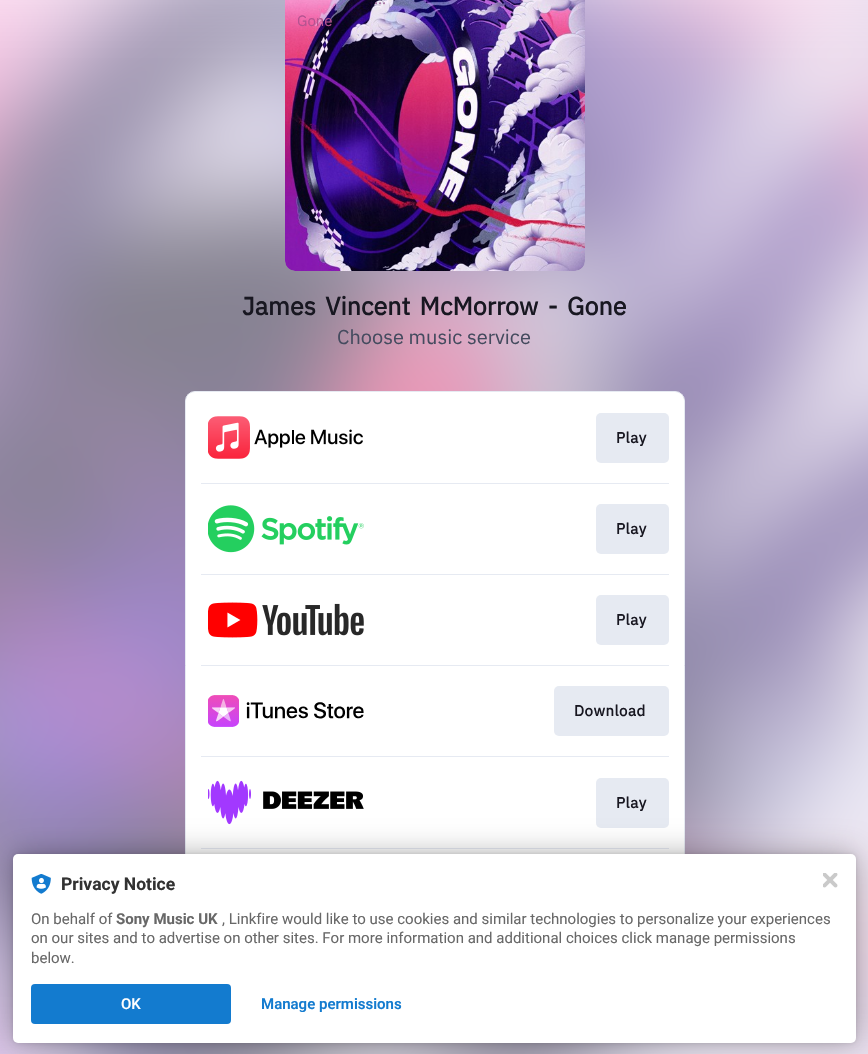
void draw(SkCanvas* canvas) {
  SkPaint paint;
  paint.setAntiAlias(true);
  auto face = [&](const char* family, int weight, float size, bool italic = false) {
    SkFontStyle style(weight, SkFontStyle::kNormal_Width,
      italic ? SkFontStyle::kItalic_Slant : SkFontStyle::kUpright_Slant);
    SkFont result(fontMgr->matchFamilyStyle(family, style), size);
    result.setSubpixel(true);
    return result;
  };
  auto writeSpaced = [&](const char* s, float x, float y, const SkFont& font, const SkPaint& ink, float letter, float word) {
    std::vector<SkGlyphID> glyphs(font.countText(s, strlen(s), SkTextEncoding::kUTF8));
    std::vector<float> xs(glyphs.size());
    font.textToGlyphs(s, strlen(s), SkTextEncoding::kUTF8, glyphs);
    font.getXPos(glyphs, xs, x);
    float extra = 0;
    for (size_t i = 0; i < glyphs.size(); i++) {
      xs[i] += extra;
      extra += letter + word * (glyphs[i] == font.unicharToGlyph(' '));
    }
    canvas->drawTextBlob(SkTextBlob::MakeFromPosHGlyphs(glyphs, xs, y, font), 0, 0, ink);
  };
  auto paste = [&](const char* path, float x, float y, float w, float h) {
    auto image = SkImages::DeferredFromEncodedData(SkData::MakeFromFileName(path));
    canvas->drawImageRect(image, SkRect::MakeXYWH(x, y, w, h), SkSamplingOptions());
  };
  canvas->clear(0xffffffff);
  paste("img/1.png", 0, 0, 868, 1054);
  paste("img/2.png", 285, 0, 300, 271);
  paint.setColor(0xffffffff);
  canvas->drawRoundRect(SkRect::MakeXYWH(185.5f, 391.5f, 499, 548), 9.5f, 9.5f, paint);
  paint.setStroke(true);
  paint.setStrokeWidth(1);
  paint.setColor(0xffe6eaf2);
  canvas->drawRoundRect(SkRect::MakeXYWH(185.5f, 391.5f, 499, 548), 9.5f, 9.5f, paint);
  paint.setStroke(false);
  paint.setColor(0xffffffff);
  canvas->drawRoundRect(SkRect::MakeXYWH(186, 393, 498, 546), 9, 9, paint);
  paste("img/3.png", 208, 416, 155, 43);
  paint.setColor(0xffe6eaf2);
  canvas->drawRoundRect(SkRect::MakeXYWH(596, 413, 73, 50), 5, 5, paint);
  canvas->drawRect(SkRect::MakeXYWH(201, 483, 468, 1), paint);
  paste("img/4.png", 208, 505, 156, 48);
  canvas->drawRoundRect(SkRect::MakeXYWH(596, 504, 73, 50), 5, 5, paint);
  canvas->drawRect(SkRect::MakeXYWH(201, 574, 468, 1), paint);
  paste("img/5.png", 208, 602, 156, 36);
  canvas->drawRoundRect(SkRect::MakeXYWH(596, 595, 73, 50), 5, 5, paint);
  canvas->drawRect(SkRect::MakeXYWH(201, 665, 468, 1), paint);
  paste("img/6.png", 208, 695, 156, 32);
  canvas->drawRoundRect(SkRect::MakeXYWH(554, 686, 115, 50), 5, 5, paint);
  canvas->drawRect(SkRect::MakeXYWH(201, 756, 468, 1), paint);
  paste("img/7.png", 208, 780, 156, 45);
  canvas->drawRoundRect(SkRect::MakeXYWH(596, 778, 73, 50), 5, 5, paint);
  canvas->drawRect(SkRect::MakeXYWH(201, 848, 468, 1), paint);
  paint.setColor(0x1f000000);
  paint.setMaskFilter(SkMaskFilter::MakeBlur(kNormal_SkBlurStyle, 2.5f));
  canvas->drawRoundRect(SkRect::MakeXYWH(13, 854, 843, 189), 5, 5, paint);
  paint.setMaskFilter(nullptr);
  paint.setColor(0x4d000000);
  paint.setMaskFilter(SkMaskFilter::MakeBlur(kNormal_SkBlurStyle, 15));
  canvas->drawRoundRect(SkRect::MakeXYWH(13, 854, 843, 189), 5, 5, paint);
  paint.setMaskFilter(nullptr);
  paint.setColor(0xffffffff);
  canvas->drawRoundRect(SkRect::MakeXYWH(13, 854, 843, 189), 5, 5, paint);
  paste("img/8.png", 31, 874, 20, 20);
  paint.setColor(0xff137bcf);
  canvas->drawRoundRect(SkRect::MakeXYWH(31, 984, 200, 40), 4, 4, paint);
  paste("img/9.png", 823, 873, 15, 15);
  auto f0 = face("IBM Plex Sans", 400, 15);
  paint.setColor(0xffa26d9e);
  canvas->drawString("…", 374, 4, f0, paint);
  canvas->save();
  canvas->clipRect(SkRect::MakeXYWH(298, 10, 95, 23));
  paint.setColor(0xffb55390);
  canvas->drawString("Gone", 297, 26, f0, paint);
  canvas->restore();
  auto f1 = face("IBM Plex Sans", 700, 25);
  paint.setColor(0xff181721);
  writeSpaced("James Vincent McMorrow - Gone", 242, 315, f1, paint, 0, 3.5f);
  auto f2 = face("IBM Plex Sans", 400, 20);
  paint.setColor(0xff454b5f);
  canvas->drawString("Choose music service", 337, 344, f2, paint);
  auto f3 = face("IBM Plex Sans", 700, 15);
  paint.setColor(0xff181721);
  {
    const struct { const char* s; float x, y; } items[] = {
      {"Play", 616, 443},
      {"Play", 616, 534},
      {"Play", 616, 625},
      {"Download", 574, 716},
      {"Play", 616, 808},
    };
    for (auto [s, x, y] : items) {
      writeSpaced(s, x, y, f3, paint, 0.5f, 0);
    }
  }
  auto f4 = face("Roboto", 700, 17.5f);
  paint.setColor(0xff323232);
  canvas->drawString("Privacy Notice", 61, 890, f4, paint);
  auto f5 = face("Roboto", 400, 15);
  paint.setColor(0xff686868);
  canvas->drawString("On behalf of", 31, 924, f5, paint);
  auto f6 = face("Roboto", 700, 15);
  canvas->drawString("Sony Music UK", 116, 924, f6, paint);
  {
    const struct { const char* s; float x, y; } items[] = {
      {", Linkfire would like to use cookies and similar technologies to personalize your experiences", 222, 924},
      {"on our sites and to advertise on other sites. For more information and additional choices click manage permissions", 31, 943},
      {"below.", 31, 963},
    };
    for (auto [s, x, y] : items) {
      canvas->drawString(s, x, y, f5, paint);
    }
  }
  auto f7 = face("Roboto", 500, 15);
  paint.setColor(0xffffffff);
  canvas->drawString("OK", 121, 1009, f7, paint);
  auto f8 = face("Roboto", 600, 15);
  paint.setColor(0xff137bcf);
  canvas->drawString("Manage permissions", 261, 1009, f8, paint);
}
